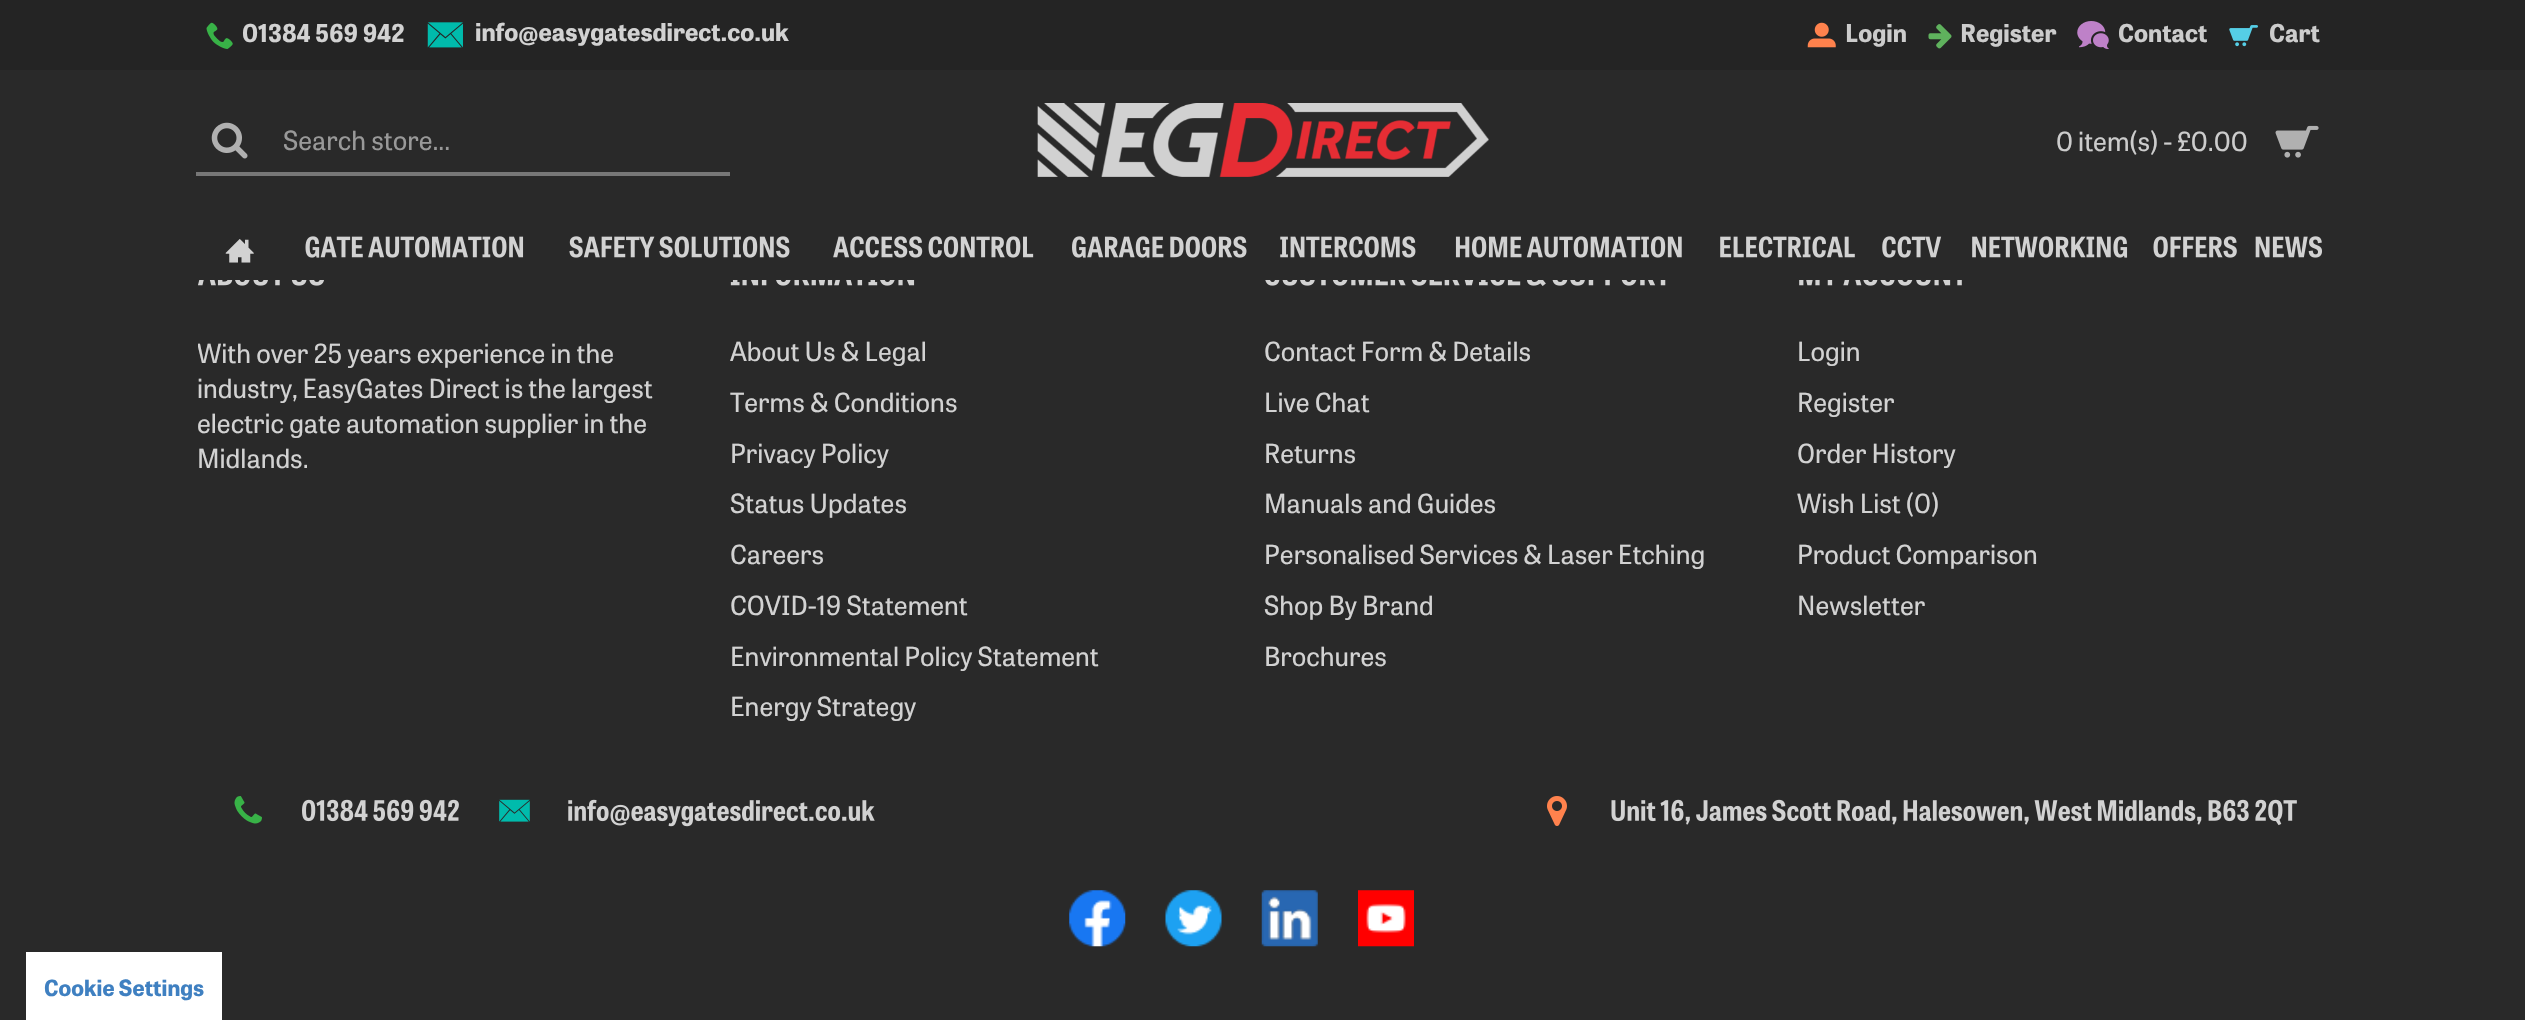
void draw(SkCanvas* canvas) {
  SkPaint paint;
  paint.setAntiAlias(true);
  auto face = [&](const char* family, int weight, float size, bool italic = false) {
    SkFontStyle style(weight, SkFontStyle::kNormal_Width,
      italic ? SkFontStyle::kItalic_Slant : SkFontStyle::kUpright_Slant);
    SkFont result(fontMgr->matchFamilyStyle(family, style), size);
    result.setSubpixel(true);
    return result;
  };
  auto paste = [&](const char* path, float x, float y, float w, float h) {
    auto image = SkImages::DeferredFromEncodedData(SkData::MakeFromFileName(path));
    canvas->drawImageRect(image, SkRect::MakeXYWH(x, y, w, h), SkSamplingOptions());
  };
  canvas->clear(0xff292929);
  paint.setColor(0xff242424);
  canvas->drawRect(SkRect::MakeXYWH(0, 0, 2525, 70), paint);
  paste("img/1.png", 206, 22, 27, 27);
  paste("img/2.png", 427, 22, 36, 26);
  paste("img/3.png", 1807, 22, 29, 26);
  paste("img/4.png", 1928, 24, 24, 25);
  paste("img/5.png", 2077, 21, 32, 28);
  paste("img/6.png", 2229, 25, 29, 22);
  paste("img/7.png", 211, 122, 37, 37);
  paint.setColor(0xff777777);
  canvas->drawRect(SkRect::MakeXYWH(196, 172, 534, 4), paint);
  paste("img/8.png", 1037, 103, 452, 74);
  paste("img/9.png", 2275, 125, 44, 33);
  paste("img/10.png", 225, 239, 29, 24);
  paste("img/11.png", 305, 236, 219, 22);
  paste("img/12.png", 569, 236, 221, 22);
  paste("img/13.png", 833, 236, 201, 22);
  paste("img/14.png", 1072, 236, 175, 22);
  paste("img/15.png", 1280, 236, 136, 22);
  paste("img/16.png", 1455, 236, 227, 22);
  paste("img/17.png", 1720, 236, 135, 22);
  paste("img/18.png", 1882, 236, 60, 22);
  paste("img/19.png", 1972, 236, 156, 22);
  paste("img/20.png", 2153, 236, 84, 22);
  paste("img/21.png", 2255, 236, 67, 22);
  paste("img/22.png", 198, 280, 126, 6);
  paste("img/23.png", 730, 280, 185, 6);
  paste("img/24.png", 1265, 280, 256, 6);
  paste("img/25.png", 1527, 280, 139, 6);
  paste("img/26.png", 1799, 280, 163, 6);
  paste("img/27.png", 234, 796, 28, 28);
  paste("img/28.png", 302, 799, 157, 23);
  paste("img/29.png", 499, 799, 31, 23);
  paste("img/30.png", 568, 799, 307, 28);
  paste("img/31.png", 1547, 796, 20, 30);
  paste("img/32.png", 1611, 799, 79, 26);
  paste("img/33.png", 1696, 799, 601, 27);
  paste("img/34.png", 1069, 890, 57, 57);
  paste("img/35.png", 1165, 890, 57, 57);
  paste("img/36.png", 1261, 890, 57, 57);
  paste("img/37.png", 1358, 890, 56, 57);
  paint.setColor(0xffffffff);
  canvas->drawRect(SkRect::MakeXYWH(26, 952, 196, 68), paint);
  auto f0 = face("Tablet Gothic", 700, 24.5f);
  paint.setColor(0xffd2d2d2);
  canvas->drawString("01384 569 942", 242, 42, f0, paint);
  canvas->drawString("info@easygatesdirect.co.uk", 475, 41, f0, paint);
  paint.setColor(0xffcccccc);
  {
    const struct { const char* s; float x, y; } items[] = {
      {"Login", 1845, 42},
      {"Register", 1960, 42},
      {"Contact", 2118, 42},
      {"Cart", 2269, 42},
    };
    for (auto [s, x, y] : items) {
      canvas->drawString(s, x, y, f0, paint);
    }
  }
  canvas->save();
  canvas->clipRect(SkRect::MakeXYWH(284, 119, 446, 40));
  auto f1 = face("Tablet Gothic", 400, 26.25f);
  paint.setColor(0xff999999);
  canvas->drawString("Search store...", 283, 150, f1, paint);
  canvas->restore();
  paint.setColor(0xffcccccc);
  canvas->drawString("0 item(s) - £0.00", 2056, 151, f1, paint);
  canvas->save();
  canvas->clipRect(SkRect::MakeXYWH(198, 334, 488, 140));
  paint.setColor(0xffd2d2d2);
  canvas->drawString("With over 25 years experience in the", 197, 363, f1, paint);
  canvas->restore();
  {
    const struct { const char* s; float x, y; } items[] = {
      {"industry, EasyGates Direct is the largest", 197, 398},
      {"electric gate automation supplier in the", 197, 433},
      {"Midlands.", 197, 468},
      {"About Us & Legal", 730, 361},
      {"Terms & Conditions", 730, 412},
      {"Privacy Policy", 730, 463},
      {"Status Updates", 730, 513},
      {"Careers", 730, 564},
      {"COVID-19 Statement", 730, 615},
      {"Environmental Policy Statement", 730, 666},
      {"Energy Strategy", 730, 716},
      {"Contact Form & Details", 1264, 361},
      {"Live Chat", 1264, 412},
      {"Returns", 1264, 463},
      {"Manuals and Guides", 1264, 513},
      {"Personalised Services & Laser Etching", 1264, 564},
      {"Shop By Brand", 1264, 615},
      {"Brochures", 1264, 666},
      {"Login", 1797, 361},
      {"Register", 1797, 412},
      {"Order History", 1797, 463},
      {"Wish List (0)", 1797, 513},
      {"Product Comparison", 1797, 564},
      {"Newsletter", 1797, 615},
    };
    for (auto [s, x, y] : items) {
      canvas->drawString(s, x, y, f1, paint);
    }
  }
  auto f2 = face("Tablet Gothic", 700, 22.25f);
  paint.setColor(0xff3f80c1);
  canvas->drawString("Cookie Settings", 44, 996, f2, paint);
}
